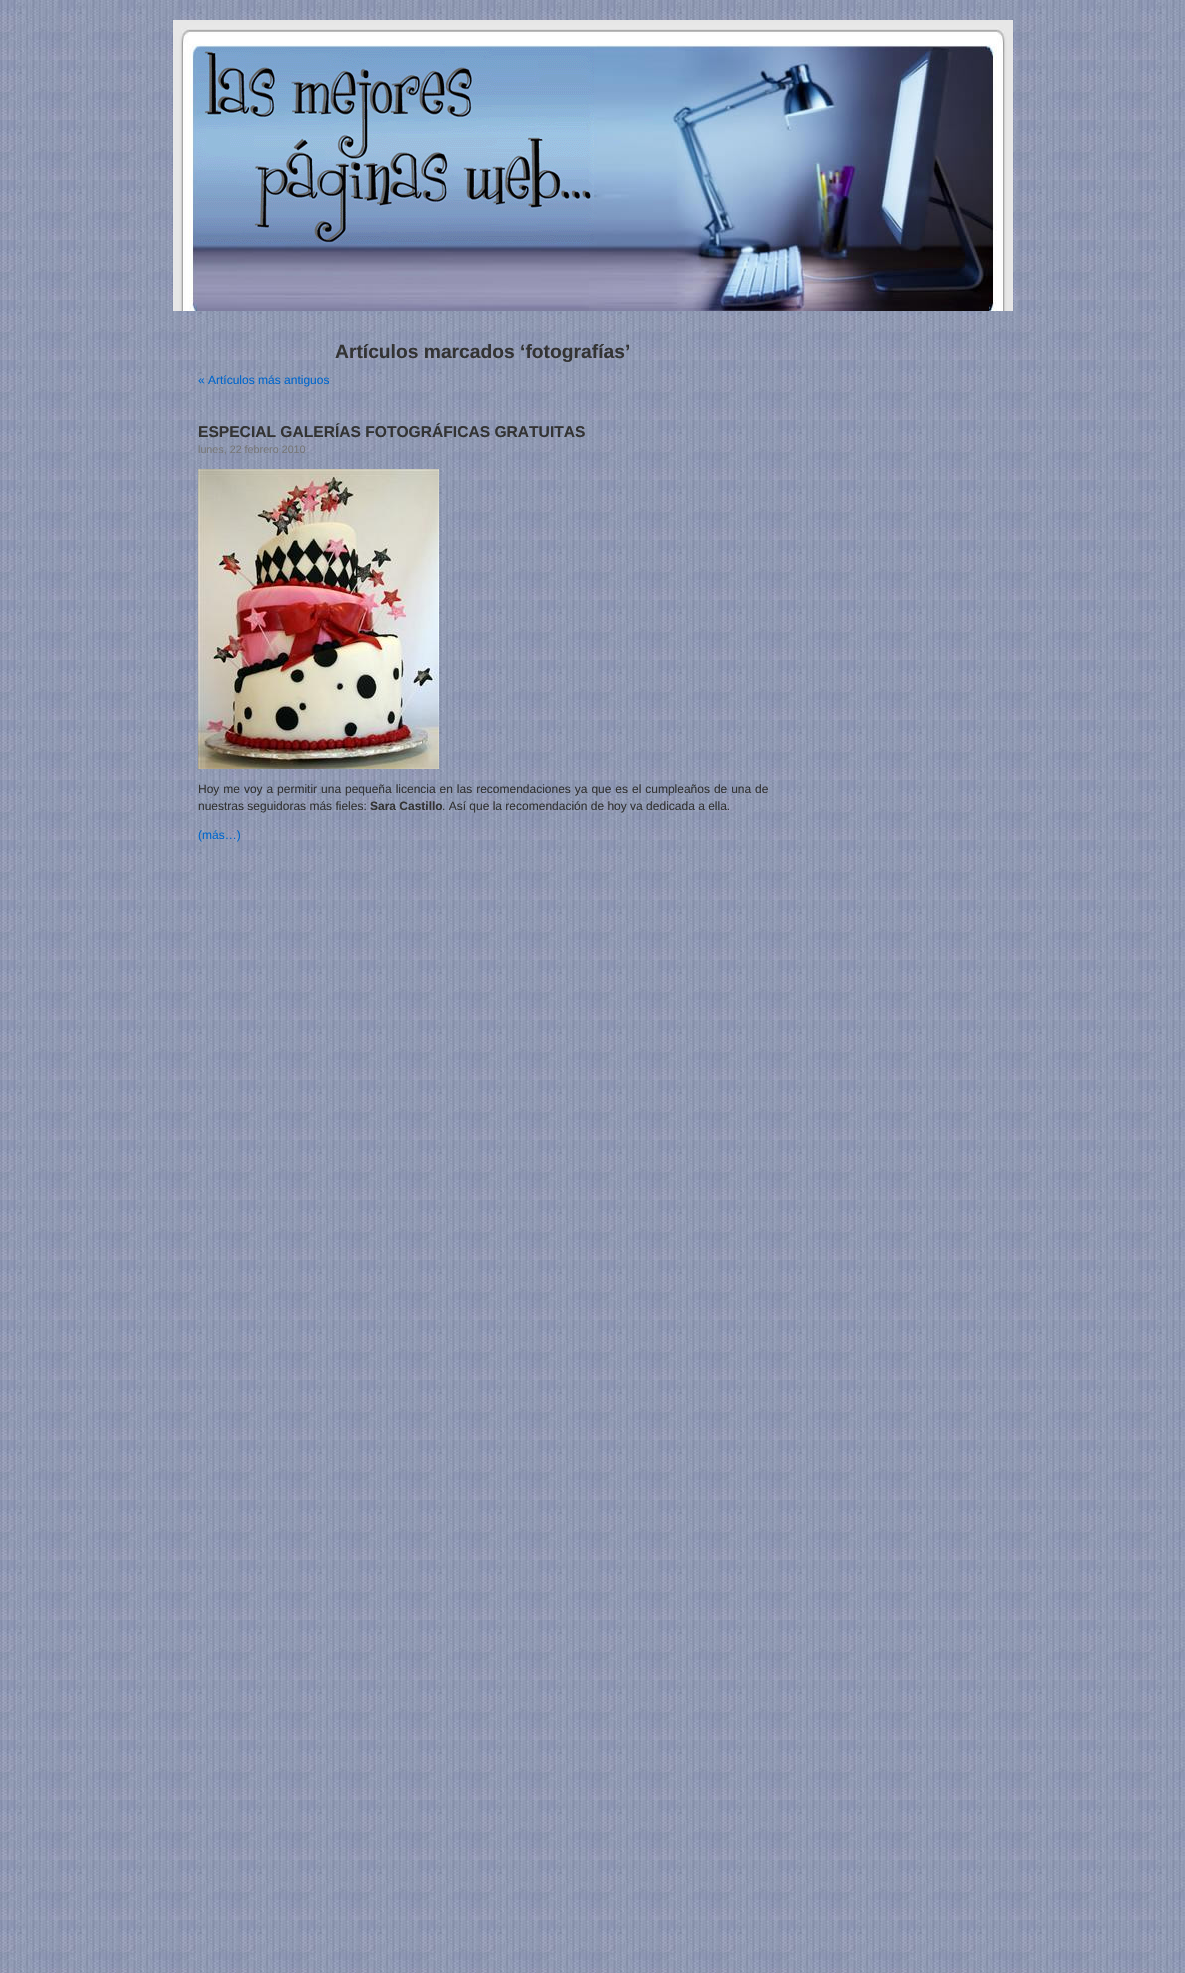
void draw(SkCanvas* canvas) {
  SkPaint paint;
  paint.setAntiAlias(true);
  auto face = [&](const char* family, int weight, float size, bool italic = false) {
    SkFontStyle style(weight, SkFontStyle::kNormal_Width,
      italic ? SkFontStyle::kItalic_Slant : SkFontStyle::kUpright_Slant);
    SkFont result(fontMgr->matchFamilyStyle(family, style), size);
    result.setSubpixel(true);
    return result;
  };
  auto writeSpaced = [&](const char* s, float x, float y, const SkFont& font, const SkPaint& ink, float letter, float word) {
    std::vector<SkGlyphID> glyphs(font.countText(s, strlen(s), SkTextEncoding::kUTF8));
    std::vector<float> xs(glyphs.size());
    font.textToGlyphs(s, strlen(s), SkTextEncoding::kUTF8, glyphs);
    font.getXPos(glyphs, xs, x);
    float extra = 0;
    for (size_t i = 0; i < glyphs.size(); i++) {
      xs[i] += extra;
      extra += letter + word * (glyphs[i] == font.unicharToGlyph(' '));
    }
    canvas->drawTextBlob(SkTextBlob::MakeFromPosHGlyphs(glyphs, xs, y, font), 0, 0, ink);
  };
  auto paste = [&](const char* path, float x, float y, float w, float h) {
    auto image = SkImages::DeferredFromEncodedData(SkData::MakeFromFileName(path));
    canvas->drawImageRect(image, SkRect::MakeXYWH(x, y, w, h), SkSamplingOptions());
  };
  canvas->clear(0xffffffff);
  paste("img/1.png", 0, 0, 1185, 1973);
  paste("img/2.png", 173, 20, 840, 291);
  paste("img/3.png", 174, 20, 838, 291);
  paste("img/4.png", 198, 48, 396, 196);
  paste("img/5.png", 198, 469, 241, 300);
  auto f0 = face("Liberation Sans", 700, 19.25f);
  paint.setColor(0xff333333);
  canvas->drawString("Artículos marcados ‘fotografías’", 335, 358, f0, paint);
  auto f1 = face("Liberation Sans", 400, 12);
  paint.setColor(0xff0066cc);
  canvas->drawString("« Artículos más antiguos", 198, 384, f1, paint);
  auto f2 = face("Liberation Sans", 700, 15.6f);
  paint.setColor(0xff333333);
  canvas->drawString("ESPECIAL GALERÍAS FOTOGRÁFICAS GRATUITAS", 198, 437, f2, paint);
  auto f3 = face("Liberation Sans", 400, 10.75f);
  paint.setColor(0xff777777);
  canvas->drawString("lunes, 22 febrero 2010", 198, 453, f3, paint);
  paint.setColor(0xff333333);
  writeSpaced("Hoy me voy a permitir una pequeña licencia en las recomendaciones ya que es el cumpleaños de una de", 198, 793, f1, paint, 0, 0.6f);
  canvas->drawString("nuestras seguidoras más fieles:", 198, 810, f1, paint);
  auto f4 = face("Liberation Sans", 700, 12);
  canvas->drawString("Sara Castillo", 370, 810, f4, paint);
  canvas->drawString(". Así que la recomendación de hoy va dedicada a ella.", 442, 810, f1, paint);
  paint.setColor(0xff0066cc);
  canvas->drawString("(más…)", 198, 839, f1, paint);
}
